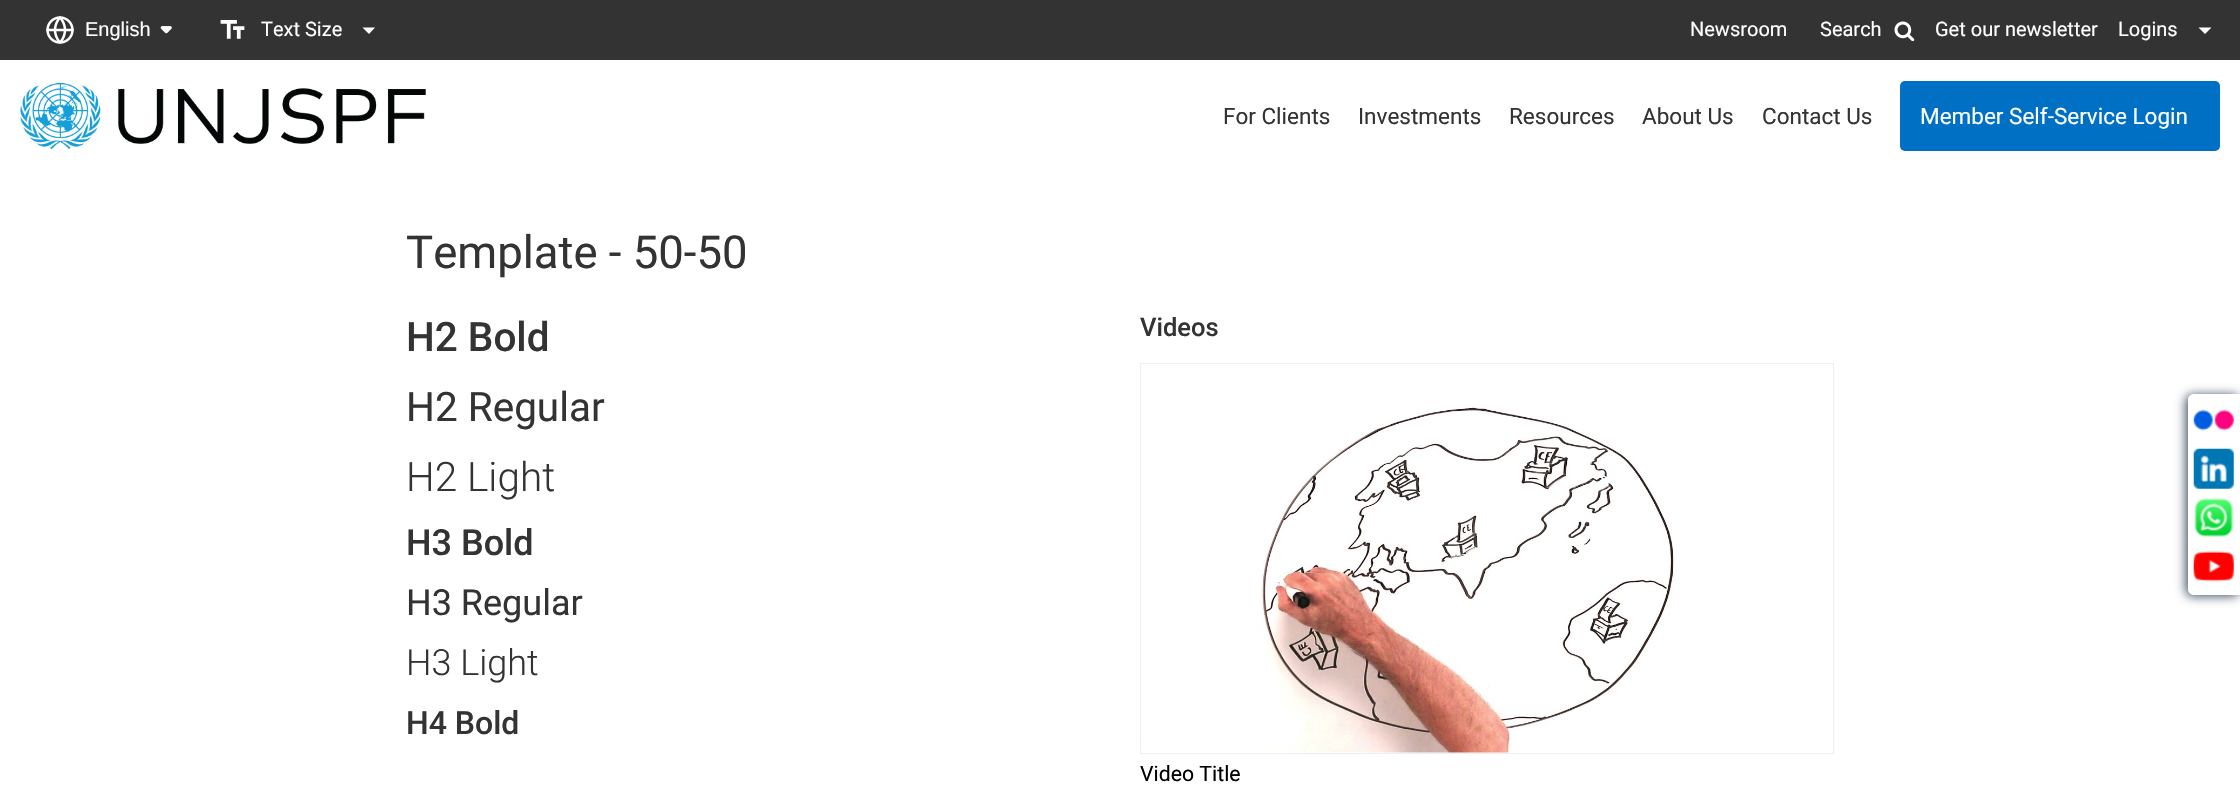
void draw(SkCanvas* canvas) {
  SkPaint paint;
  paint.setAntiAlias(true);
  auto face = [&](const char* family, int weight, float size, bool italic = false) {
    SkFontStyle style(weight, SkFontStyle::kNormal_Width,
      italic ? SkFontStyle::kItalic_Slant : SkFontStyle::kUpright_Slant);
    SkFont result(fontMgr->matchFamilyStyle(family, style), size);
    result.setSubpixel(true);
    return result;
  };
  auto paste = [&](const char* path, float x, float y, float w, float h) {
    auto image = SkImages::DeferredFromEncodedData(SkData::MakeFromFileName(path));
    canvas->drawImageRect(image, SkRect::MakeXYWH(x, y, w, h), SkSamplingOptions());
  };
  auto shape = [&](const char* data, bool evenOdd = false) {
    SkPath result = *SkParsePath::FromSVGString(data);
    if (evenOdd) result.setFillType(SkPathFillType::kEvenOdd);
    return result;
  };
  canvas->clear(0xffffffff);
  paint.setColor(0xff333333);
  canvas->drawRect(SkRect::MakeXYWH(0, 0, 2240, 60), paint);
  paste("img/1.png", 46, 16, 28, 28);
  paste("img/2.png", 160, 26, 12, 8);
  paste("img/3.png", 220, 20, 25, 19);
  paint.setColor(0xffffffff);
  canvas->drawPath(shape("M362.5 27.5L369 34L375 27.5Z"), paint);
  paste("img/4.png", 1894, 21, 21, 20);
  canvas->drawPath(shape("M2198.5 27.5L2205 34L2211.5 27.5Z"), paint);
  paste("img/5.png", 20, 82, 406, 68);
  paint.setColor(0xff0070c4);
  canvas->drawRoundRect(SkRect::MakeXYWH(1900, 81, 320, 70), 5, 5, paint);
  paint.setStroke(true);
  paint.setStrokeWidth(1);
  paint.setColor(0xffefeeef);
  canvas->drawRect(SkRect::MakeXYWH(1140.5f, 363.5f, 693, 390), paint);
  paste("img/6.png", 1142, 363, 690, 390);
  paint.setStroke(false);
  paint.setColor(0xff38495a);
  paint.setMaskFilter(SkMaskFilter::MakeBlur(kNormal_SkBlurStyle, 5.5f));
  canvas->drawRoundRect(SkRect::MakeXYWH(2186, 395, 53, 201), 6, 6, paint);
  paint.setMaskFilter(nullptr);
  paint.setColor(0xffffffff);
  canvas->drawPath(shape("M2194 394H2240V595H2194C2190.5 595 2188 592.5 2188 589V400C2188 396.5 2190.5 394 2194 394Z"), paint);
  paste("img/7.png", 2193, 409, 41, 22);
  paste("img/8.png", 2193, 448, 41, 41);
  paste("img/9.png", 2194, 498, 39, 39);
  paste("img/10.png", 2193, 550, 41, 32);
  auto f0 = face("Liberation Sans", 400, 20);
  canvas->drawString("English", 85, 36, f0, paint);
  auto f1 = face("Roboto", 400, 20);
  {
    const struct { const char* s; float x, y; } items[] = {
      {"Text Size", 261, 36},
      {"Newsroom", 1690, 36},
      {"Search", 1820, 36},
      {"Get our newsletter", 1935, 36},
      {"Logins", 2118, 36},
    };
    for (auto [s, x, y] : items) {
      canvas->drawString(s, x, y, f1, paint);
    }
  }
  auto f2 = face("Roboto", 400, 22.5f);
  paint.setColor(0xff333333);
  {
    const struct { const char* s; float x, y; } items[] = {
      {"For Clients", 1223, 124},
      {"Investments", 1358, 124},
      {"Resources", 1509, 124},
      {"About Us", 1642, 124},
      {"Contact Us", 1762, 124},
    };
    for (auto [s, x, y] : items) {
      canvas->drawString(s, x, y, f2, paint);
    }
  }
  paint.setColor(0xffffffff);
  canvas->drawString("Member Self-Service Login", 1920, 124, f2, paint);
  auto f3 = face("Roboto", 400, 45.5f);
  paint.setColor(0xff333333);
  canvas->drawString("Template - 50-50", 406, 268, f3, paint);
  auto f4 = face("Roboto", 500, 40.5f);
  canvas->drawString("H2 Bold", 406, 351, f4, paint);
  auto f5 = face("Roboto", 400, 40.5f);
  canvas->drawString("H2 Regular", 406, 421, f5, paint);
  auto f6 = face("Roboto", 300, 40.5f);
  canvas->drawString("H2 Light", 406, 491, f6, paint);
  auto f7 = face("Roboto", 500, 36);
  canvas->drawString("H3 Bold", 406, 555, f7, paint);
  auto f8 = face("Roboto", 400, 36);
  canvas->drawString("H3 Regular", 406, 615, f8, paint);
  auto f9 = face("Roboto", 300, 36);
  canvas->drawString("H3 Light", 406, 675, f9, paint);
  auto f10 = face("Roboto", 500, 32);
  canvas->drawString("H4 Bold", 406, 734, f10, paint);
  auto f11 = face("Roboto", 500, 25.5f);
  canvas->drawString("Videos", 1140, 336, f11, paint);
  auto f12 = face("Roboto", 400, 21.25f);
  paint.setColor(0xff000000);
  canvas->drawString("Video Title", 1140, 781, f12, paint);
}
